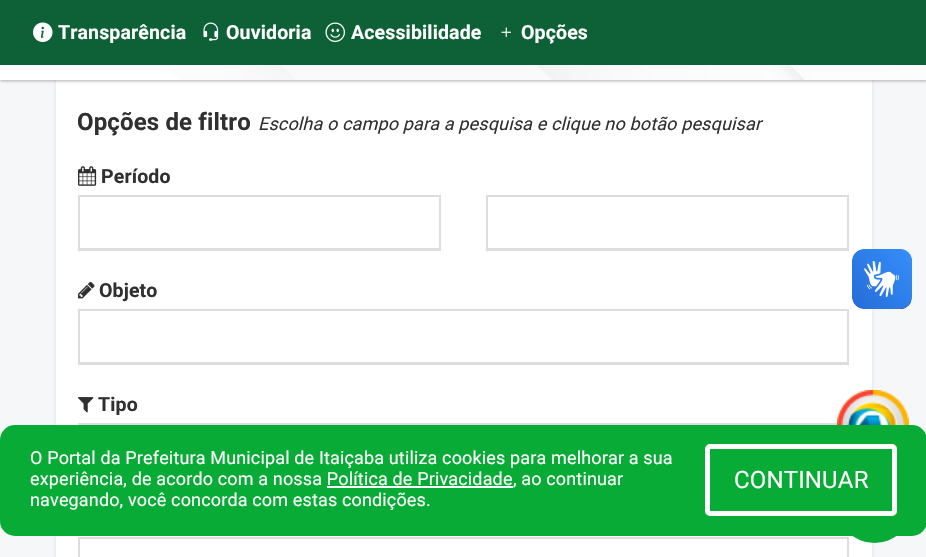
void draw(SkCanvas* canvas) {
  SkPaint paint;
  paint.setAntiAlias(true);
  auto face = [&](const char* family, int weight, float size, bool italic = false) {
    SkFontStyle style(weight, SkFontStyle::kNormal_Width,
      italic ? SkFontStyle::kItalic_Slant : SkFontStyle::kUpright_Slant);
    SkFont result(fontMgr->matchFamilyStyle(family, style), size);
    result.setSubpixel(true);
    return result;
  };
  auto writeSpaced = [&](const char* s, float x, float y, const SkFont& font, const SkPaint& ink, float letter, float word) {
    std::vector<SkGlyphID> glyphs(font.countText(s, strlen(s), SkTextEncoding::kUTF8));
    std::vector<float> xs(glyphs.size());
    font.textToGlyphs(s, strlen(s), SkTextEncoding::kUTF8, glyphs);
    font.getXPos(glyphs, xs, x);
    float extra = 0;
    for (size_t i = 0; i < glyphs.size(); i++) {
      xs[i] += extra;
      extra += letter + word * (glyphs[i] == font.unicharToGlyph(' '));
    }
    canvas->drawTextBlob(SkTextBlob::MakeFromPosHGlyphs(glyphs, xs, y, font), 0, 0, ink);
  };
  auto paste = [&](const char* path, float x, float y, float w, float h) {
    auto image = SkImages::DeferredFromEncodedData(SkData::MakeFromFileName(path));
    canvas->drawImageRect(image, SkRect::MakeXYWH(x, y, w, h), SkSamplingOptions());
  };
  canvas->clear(0xfff6f7f8);
  paint.setColor(0x17030047);
  paint.setMaskFilter(SkMaskFilter::MakeBlur(kNormal_SkBlurStyle, 2));
  canvas->drawRect(SkRect::MakeXYWH(56, 26, 816, 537), paint);
  paint.setMaskFilter(nullptr);
  paint.setColor(0xffffffff);
  canvas->drawRect(SkRect::MakeXYWH(56, 80, 816, 477), paint);
  canvas->drawRoundRect(SkRect::MakeXYWH(56, 24, 816, 60), 5, 5, paint);
  paint.setColor(0x4d000000);
  paint.setMaskFilter(SkMaskFilter::MakeBlur(kNormal_SkBlurStyle, 1.5f));
  canvas->drawRect(SkRect::MakeXYWH(0, 2, 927, 79), paint);
  paint.setMaskFilter(nullptr);
  paste("img/1.png", 0, 65, 926, 15);
  paint.setColor(0xff0e6036);
  canvas->drawRect(SkRect::MakeXYWH(0, 0, 926, 65), paint);
  paste("img/2.png", 33, 22, 20, 20);
  paste("img/3.png", 203, 22, 16, 19);
  paste("img/4.png", 325, 22, 20, 20);
  paste("img/5.png", 501, 27, 11, 11);
  paste("img/6.png", 78, 166, 19, 20);
  paint.setColor(0xffdddddd);
  canvas->drawRect(SkRect::MakeXYWH(80, 248, 360, 1), paint);
  paint.setStroke(true);
  paint.setStrokeWidth(2);
  canvas->drawRect(SkRect::MakeXYWH(79, 196, 361, 54), paint);
  paint.setStroke(false);
  canvas->drawRect(SkRect::MakeXYWH(488, 248, 360, 1), paint);
  paint.setStroke(true);
  canvas->drawRect(SkRect::MakeXYWH(487, 196, 361, 54), paint);
  paste("img/7.png", 78, 281, 17, 18);
  paint.setStroke(false);
  canvas->drawRect(SkRect::MakeXYWH(80, 362, 768, 1), paint);
  paint.setStroke(true);
  canvas->drawRect(SkRect::MakeXYWH(79, 310, 769, 54), paint);
  paste("img/8.png", 78, 397, 16, 16);
  canvas->drawRect(SkRect::MakeXYWH(79, 424, 769, 54), paint);
  canvas->drawRect(SkRect::MakeXYWH(79, 538, 769, 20), paint);
  paste("img/9.png", 852, 249, 60, 60);
  paste("img/10.png", 852, 249, 60, 60);
  paste("img/11.png", 837, 390, 72, 35);
  paint.setStroke(false);
  paint.setColor(0xff08ab35);
  canvas->drawCircle(874.5f, 505.5f, 37.5f, paint);
  canvas->drawRoundRect(SkRect::MakeXYWH(0, 425, 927, 111), 15, 15, paint);
  paint.setColor(0xffffffff);
  canvas->drawRect(SkRect::MakeXYWH(327, 486, 186, 2), paint);
  paint.setStroke(true);
  paint.setStrokeWidth(5);
  canvas->drawRoundRect(SkRect::MakeXYWH(707.5f, 446.5f, 187, 67), 2.5f, 2.5f, paint);
  auto f0 = face("Roboto", 700, 19.5f);
  paint.setStroke(false);
  {
    const struct { const char* s; float x, y; } items[] = {
      {"Transparência", 58, 39},
      {"Ouvidoria", 226, 39},
      {"Acessibilidade", 351, 39},
      {"Opções", 521, 39},
    };
    for (auto [s, x, y] : items) {
      writeSpaced(s, x, y, f0, paint, 0.15f, 0);
    }
  }
  auto f1 = face("Roboto", 700, 24);
  paint.setColor(0xff303030);
  writeSpaced("Opções de filtro", 77, 130, f1, paint, 0.15f, 0);
  auto f2 = face("Roboto", 400, 18, true);
  writeSpaced("Escolha o campo para a pesquisa e clique no botão pesquisar", 258, 130, f2, paint, 0.15f, 0);
  {
    const struct { const char* s; float x, y; } items[] = {
      {"Período", 101, 183},
      {"Objeto", 99, 297},
      {"Tipo", 98, 411},
    };
    for (auto [s, x, y] : items) {
      writeSpaced(s, x, y, f0, paint, 0.15f, 0);
    }
  }
  auto f3 = face("Roboto", 400, 18);
  paint.setColor(0xffffffff);
  {
    const struct { const char* s; float x, y; } items[] = {
      {"O Portal da Prefeitura Municipal de Itaiçaba utiliza cookies para melhorar a sua", 30, 464},
      {"experiência, de acordo com a nossa Política de Privacidade", 30, 485},
      {", ao continuar", 513, 485},
      {"navegando, você concorda com estas condições.", 30, 506},
    };
    for (auto [s, x, y] : items) {
      writeSpaced(s, x, y, f3, paint, 0.15f, 0);
    }
  }
  auto f4 = face("Roboto", 400, 24);
  writeSpaced("CONTINUAR", 734, 488, f4, paint, 0.15f, 0);
}
